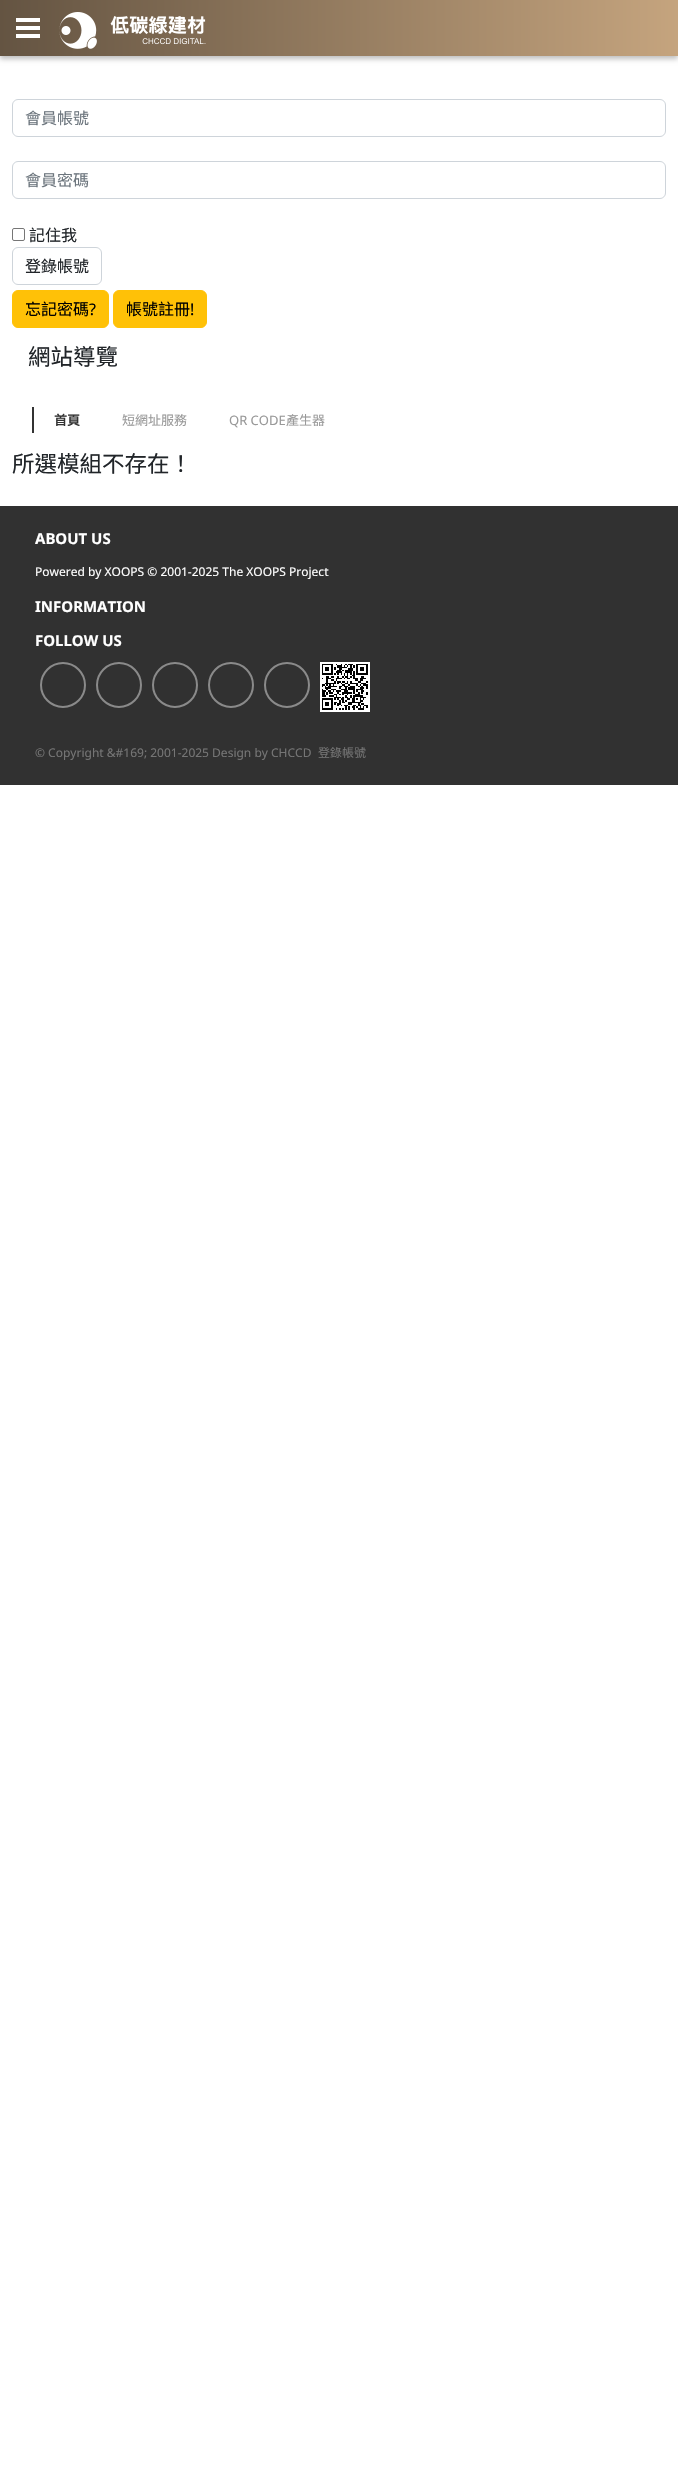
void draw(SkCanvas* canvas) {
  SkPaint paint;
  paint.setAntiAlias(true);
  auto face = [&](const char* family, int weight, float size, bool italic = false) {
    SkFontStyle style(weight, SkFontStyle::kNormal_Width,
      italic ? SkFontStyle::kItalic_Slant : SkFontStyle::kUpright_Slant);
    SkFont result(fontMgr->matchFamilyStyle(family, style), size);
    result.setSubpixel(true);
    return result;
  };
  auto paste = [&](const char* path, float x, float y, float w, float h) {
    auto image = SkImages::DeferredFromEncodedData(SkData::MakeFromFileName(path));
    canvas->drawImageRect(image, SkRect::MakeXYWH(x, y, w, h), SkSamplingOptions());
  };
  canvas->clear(0xffffffff);
  paint.setColor(0x40000000);
  paint.setMaskFilter(SkMaskFilter::MakeBlur(kNormal_SkBlurStyle, 2.5f));
  canvas->drawRect(SkRect::MakeXYWH(0, 3, 678, 56), paint);
  paint.setMaskFilter(nullptr);
  {
    const SkColor colors[] = {0xff645442, 0xffc5a47e};
    const float stops[] = {0, 1};
    const SkPoint ends[] = {{0, 28}, {678, 28}};
    paint.setShader(SkGradientShader::MakeLinear(ends, colors, stops, 2, SkTileMode::kClamp));
    paint.setAlpha(255);
  }
  canvas->drawRect(SkRect::MakeXYWH(0, 0, 678, 56), paint);
  paint.setShader(nullptr);
  {
    const struct { float x, y, w, h; SkColor color; } items[] = {
      {16, 26, 24, 4, 0xffffffff},
      {16, 18, 24, 4, 0xffffffff},
      {16, 34, 24, 4, 0xffffffff},
    };
    for (auto [x, y, w, h, color] : items) {
      paint.setColor(color);
      canvas->drawRect(SkRect::MakeXYWH(x, y, w, h), paint);
    }
  }
  paste("img/1.png", 59, 12, 147, 37);
  paint.setStroke(true);
  paint.setStrokeWidth(1);
  paint.setColor(0xffced4da);
  canvas->drawRoundRect(SkRect::MakeXYWH(12.5f, 99.5f, 653, 37), 5.5f, 5.5f, paint);
  canvas->drawRoundRect(SkRect::MakeXYWH(12.5f, 161.5f, 653, 37), 5.5f, 5.5f, paint);
  paint.setColor(0xff767676);
  canvas->drawRoundRect(SkRect::MakeXYWH(12.5f, 228.5f, 12, 12), 1.5f, 1.5f, paint);
  paint.setColor(0xffced4da);
  canvas->drawRoundRect(SkRect::MakeXYWH(12.5f, 247.5f, 89, 37), 5.5f, 5.5f, paint);
  paint.setStroke(false);
  paint.setColor(0xffffc107);
  canvas->drawRoundRect(SkRect::MakeXYWH(12.5f, 290.5f, 96, 37), 5.5f, 5.5f, paint);
  paint.setStroke(true);
  canvas->drawRoundRect(SkRect::MakeXYWH(12.5f, 290.5f, 96, 37), 5.5f, 5.5f, paint);
  paint.setStroke(false);
  canvas->drawRoundRect(SkRect::MakeXYWH(113.5f, 290.5f, 93, 37), 5.5f, 5.5f, paint);
  paint.setStroke(true);
  canvas->drawRoundRect(SkRect::MakeXYWH(113.5f, 290.5f, 93, 37), 5.5f, 5.5f, paint);
  paint.setStroke(false);
  paint.setColor(0xff333333);
  canvas->drawRect(SkRect::MakeXYWH(32, 407, 2, 26), paint);
  paint.setColor(0xff313131);
  canvas->drawRect(SkRect::MakeXYWH(0, 506, 678, 279), paint);
  paint.setStroke(true);
  paint.setStrokeWidth(2);
  paint.setColor(0xff8a8a8a);
  canvas->drawCircle(63, 685, 22, paint);
  canvas->drawCircle(119, 685, 22, paint);
  canvas->drawCircle(175, 685, 22, paint);
  canvas->drawCircle(231, 685, 22, paint);
  canvas->drawCircle(287, 685, 22, paint);
  paint.setColor(0xffffffff);
  canvas->drawRect(SkRect::MakeXYWH(321, 663, 48, 48), paint);
  paste("img/2.png", 322, 664, 46, 46);
  auto f0 = face("Noto Sans CJK TC", 400, 16);
  paint.setStroke(false);
  paint.setColor(0xff6c757d);
  canvas->drawString("會員帳號", 25, 124, f0, paint);
  canvas->drawString("會員密碼", 25, 186, f0, paint);
  paint.setColor(0xff212529);
  canvas->drawString("記住我", 29, 241, f0, paint);
  canvas->drawString("登錄帳號", 25, 272, f0, paint);
  paint.setColor(0xff000000);
  canvas->drawString("忘記密碼", 25, 315, f0, paint);
  auto f1 = face("Noto Sans", 400, 16);
  canvas->drawString("?", 89, 315, f1, paint);
  canvas->drawString("帳號註冊", 126, 315, f0, paint);
  canvas->drawString("!", 190, 315, f1, paint);
  auto f2 = face("Noto Sans CJK TC", 400, 22.5f);
  paint.setColor(0xff212529);
  canvas->drawString("網站導覽", 28, 365, f2, paint);
  auto f3 = face("Noto Sans CJK TC", 700, 13);
  paint.setColor(0xff333333);
  canvas->drawString("首頁", 54, 425, f3, paint);
  auto f4 = face("Noto Sans CJK TC", 400, 13);
  paint.setColor(0xff999999);
  canvas->drawString("短網址服務", 122, 425, f4, paint);
  auto f5 = face("Noto Sans", 400, 13);
  canvas->drawString("QR CODE", 229, 425, f5, paint);
  canvas->drawString("產生器", 286, 425, f4, paint);
  paint.setColor(0xff212529);
  canvas->drawString("所選模組不存在！", 12, 472, f2, paint);
  auto f6 = face("Noto Sans", 700, 15);
  paint.setColor(0xffffffff);
  canvas->drawString("ABOUT US", 35, 544, f6, paint);
  auto f7 = face("Noto Sans", 400, 12);
  canvas->drawString("Powered by XOOPS © 2001-2025 The XOOPS Project", 35, 576, f7, paint);
  canvas->drawString("INFORMATION", 35, 612, f6, paint);
  canvas->drawString("FOLLOW US", 35, 646, f6, paint);
  paint.setColor(0xff757575);
  canvas->drawString("© Copyright &#169; 2001-2025 Design by CHCCD", 35, 757, f7, paint);
  auto f8 = face("Noto Sans CJK TC", 400, 12);
  canvas->drawString("登錄帳號", 318, 757, f8, paint);
}
